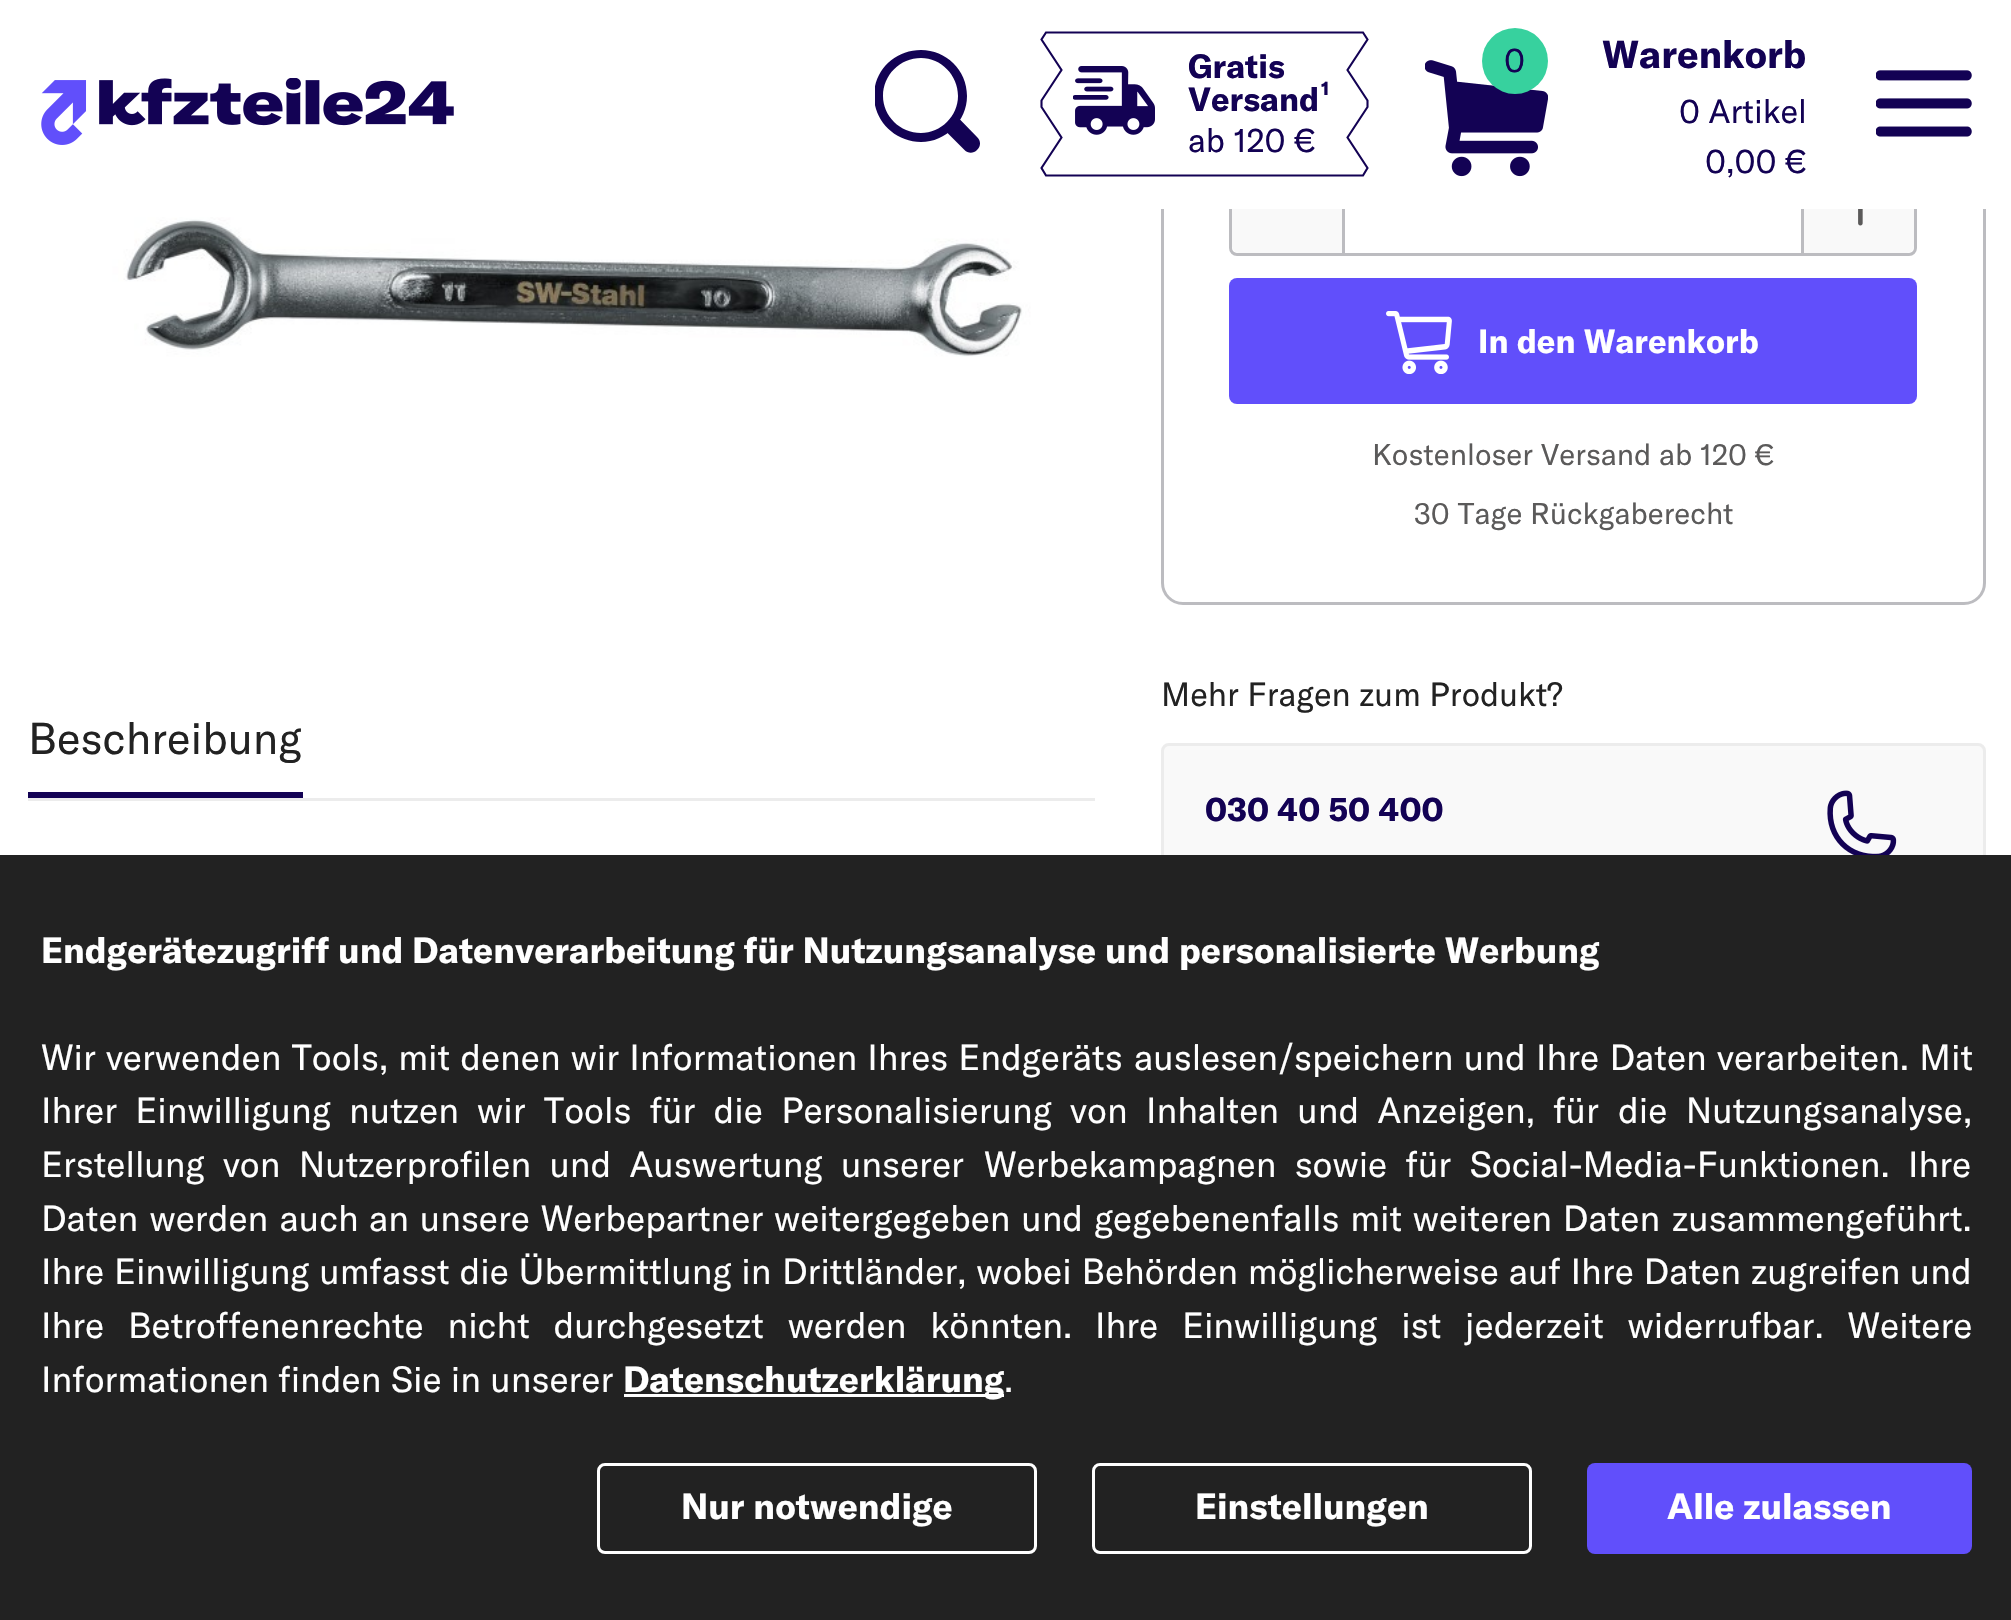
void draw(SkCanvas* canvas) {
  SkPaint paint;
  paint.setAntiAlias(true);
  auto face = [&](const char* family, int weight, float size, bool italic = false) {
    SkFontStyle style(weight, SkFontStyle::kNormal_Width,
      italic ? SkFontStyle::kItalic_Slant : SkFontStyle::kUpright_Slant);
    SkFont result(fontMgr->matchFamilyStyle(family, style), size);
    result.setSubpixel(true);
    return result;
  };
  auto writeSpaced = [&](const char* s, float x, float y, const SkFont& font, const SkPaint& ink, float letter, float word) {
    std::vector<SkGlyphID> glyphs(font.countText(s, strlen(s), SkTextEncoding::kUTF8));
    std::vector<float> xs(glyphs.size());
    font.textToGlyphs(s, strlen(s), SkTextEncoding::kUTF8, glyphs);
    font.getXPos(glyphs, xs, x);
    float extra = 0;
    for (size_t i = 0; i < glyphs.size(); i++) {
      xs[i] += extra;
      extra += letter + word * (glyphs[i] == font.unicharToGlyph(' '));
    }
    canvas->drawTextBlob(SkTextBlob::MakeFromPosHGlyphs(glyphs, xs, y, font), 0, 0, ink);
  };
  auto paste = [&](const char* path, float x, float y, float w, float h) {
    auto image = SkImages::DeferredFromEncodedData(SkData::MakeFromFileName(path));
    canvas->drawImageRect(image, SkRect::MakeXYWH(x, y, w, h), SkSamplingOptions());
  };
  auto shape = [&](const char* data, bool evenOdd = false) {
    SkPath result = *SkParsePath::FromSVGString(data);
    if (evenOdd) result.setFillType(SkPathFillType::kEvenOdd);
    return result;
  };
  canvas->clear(0xffffffff);
  paint.setStroke(true);
  paint.setStrokeWidth(3);
  paint.setColor(0xffbcbcc0);
  canvas->drawRoundRect(SkRect::MakeXYWH(1162.5f, -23.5f, 822, 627), 20.5f, 20.5f, paint);
  canvas->drawRoundRect(SkRect::MakeXYWH(1230.5f, 152.5f, 685, 102), 6.5f, 6.5f, paint);
  paint.setStroke(false);
  paint.setColor(0xfff9f9f9);
  canvas->drawPath(shape("M1240 154H1345V253H1240C1235.5 253 1232 249.5 1232 245V162C1232 157.5 1235.5 154 1240 154Z"), paint);
  canvas->drawPath(shape("M1801 154H1906C1910.5 154 1914 157.5 1914 162V245C1914 249.5 1910.5 253 1906 253H1801Z"), paint);
  paint.setColor(0xffffffff);
  canvas->drawRect(SkRect::MakeXYWH(1161, 0, 825, 209), paint);
  paste("img/1.png", 41, 78, 413, 67);
  canvas->save();
  canvas->clipRect(SkRect::MakeXYWH(875, 50, 110, 107));
  paint.setColor(0xff130254);
  canvas->drawPath(shape("M921 58C900 58 883 75 883 96C883 116 900 133 921 133C941 133 958 116 958 96C958 75 941 58 921 58ZM874 96C874 70 895 50 921 50C946 50 967 70 967 96C967 121 946 142 921 142C895 142 874 121 874 96Z", true), paint);
  canvas->restore();
  canvas->drawPath(shape("M977 150C973.5 153.5 968 153.5 964.5 150L946 131.5L959 118.5L977 137C981 140.5 981 146.5 977 150Z", true), paint);
  paint.setStroke(true);
  paint.setStrokeWidth(2.1f);
  canvas->drawPath(shape("M1363 32.5H1046L1041.5 39.5L1061.5 70L1041.5 100.5V107L1061.5 137.5L1041.5 168L1046 175.5H1363L1367.5 168L1347.5 137.5L1367.5 107V100.5L1347.5 70L1367.5 39.5Z"), paint);
  paste("img/2.png", 1073, 66, 82, 69);
  paste("img/3.png", 1425, 60, 123, 117);
  paint.setStroke(false);
  paint.setColor(0xff37d19e);
  canvas->drawCircle(1515, 61, 33, paint);
  paste("img/4.png", 1876, 70, 96, 67);
  paste("img/5.png", 60, 209, 1002, 148);
  {
    const struct { float x, y, w, h; SkColor color; } items[] = {
      {28, 798, 1067, 3, 0xffececec},
      {28, 792, 275, 6, 0xff130254},
      {1342, 209, 3, 44, 0xffbcbcc0},
      {1801, 209, 3, 44, 0xffbcbcc0},
    };
    for (auto [x, y, w, h, color] : items) {
      paint.setColor(color);
      canvas->drawRect(SkRect::MakeXYWH(x, y, w, h), paint);
    }
  }
  paste("img/6.png", 1858, 209, 5, 17);
  paint.setColor(0xff614ffb);
  canvas->drawRoundRect(SkRect::MakeXYWH(1229, 278, 688, 126), 8, 8, paint);
  paste("img/7.png", 1386, 311, 66, 63);
  paint.setColor(0xfff9f9f9);
  canvas->drawRoundRect(SkRect::MakeXYWH(1162.5f, 744.5f, 822, 162), 6.5f, 6.5f, paint);
  paint.setStroke(true);
  paint.setStrokeWidth(3);
  paint.setColor(0xffececec);
  canvas->drawRoundRect(SkRect::MakeXYWH(1162.5f, 744.5f, 822, 162), 6.5f, 6.5f, paint);
  paste("img/8.png", 1827, 790, 70, 65);
  paint.setStroke(false);
  paint.setColor(0xff222222);
  canvas->drawRect(SkRect::MakeXYWH(0, 855, 2011, 765), paint);
  paint.setColor(0xffffffff);
  canvas->drawRect(SkRect::MakeXYWH(624, 1394, 380, 3), paint);
  paint.setStroke(true);
  canvas->drawRoundRect(SkRect::MakeXYWH(598.5f, 1464.5f, 437, 88), 6.5f, 6.5f, paint);
  canvas->drawRoundRect(SkRect::MakeXYWH(1093.5f, 1464.5f, 437, 88), 6.5f, 6.5f, paint);
  paint.setStroke(false);
  paint.setColor(0xff614ffb);
  canvas->drawRoundRect(SkRect::MakeXYWH(1587, 1463, 385, 91), 8, 8, paint);
  auto f0 = face("GT America", 700, 33);
  paint.setColor(0xff130254);
  canvas->drawString("Gratis", 1188, 78, f0, paint);
  canvas->drawString("Versand", 1188, 111, f0, paint);
  auto f1 = face("GT America", 700, 19);
  canvas->drawString("1", 1321, 95, f1, paint);
  auto f2 = face("GT America", 400, 33);
  canvas->drawString("ab 120 €", 1188, 152, f2, paint);
  canvas->drawString("0", 1504, 72, f2, paint);
  auto f3 = face("GT America", 700, 38.5f);
  canvas->drawString("Warenkorb", 1602, 68, f3, paint);
  canvas->drawString("0 Artikel", 1679, 123, f2, paint);
  canvas->drawString("0,00 €", 1705, 173, f2, paint);
  auto f4 = face("GT America", 400, 44);
  paint.setColor(0xff222222);
  canvas->drawString("Beschreibung", 28, 754, f4, paint);
  paint.setColor(0xffffffff);
  canvas->drawString("In den Warenkorb", 1478, 353, f0, paint);
  auto f5 = face("GT America", 400, 29.75f);
  paint.setColor(0xff5b5a5a);
  canvas->drawString("Kostenloser Versand ab 120 €", 1372, 465, f5, paint);
  canvas->drawString("30 Tage Rückgaberecht", 1414, 524, f5, paint);
  paint.setColor(0xff222222);
  canvas->drawString("Mehr Fragen zum Produkt?", 1161, 706, f2, paint);
  paint.setColor(0xff130254);
  canvas->drawString("030 40 50 400", 1205, 821, f0, paint);
  auto f6 = face("GT America", 700, 35.75f);
  paint.setColor(0xffffffff);
  canvas->drawString("Endgerätezugriff und Datenverarbeitung für Nutzungsanalyse und personalisierte Werbung", 41, 963, f6, paint);
  auto f7 = face("GT America", 400, 35.75f);
  writeSpaced("Wir verwenden Tools, mit denen wir Informationen Ihres Endgeräts", 41, 1070, f7, paint, 0, 0.75f);
  writeSpaced("auslesen/speichern und Ihre Daten verarbeiten. Mit", 1134, 1070, f7, paint, 0, 1);
  {
    const struct { const char* s; float x, y; } items[] = {
      {"Ihrer Einwilligung nutzen", 41, 1123},
      {"wir Tools für die Personalisierung von Inhalten und Anzeigen, für", 477, 1123},
      {"die Nutzungsanalyse,", 1618, 1123},
      {"Erstellung von Nutzerprofilen und Auswertung unserer", 41, 1177},
      {"Werbekampagnen sowie für Social-Media-Funktionen. Ihre", 984, 1177},
    };
    for (auto [s, x, y] : items) {
      writeSpaced(s, x, y, f7, paint, 0, 9);
    }
  }
  writeSpaced("Daten werden auch", 41, 1231, f7, paint, 0, 2);
  writeSpaced("an unsere Werbepartner weitergegeben und gegebenenfalls mit weiteren Daten", 369, 1231, f7, paint, 0, 1.5f);
  canvas->drawString("zusammengeführt.", 1672, 1231, f7, paint);
  writeSpaced("Ihre Einwilligung umfasst die Übermittlung in", 41, 1284, f7, paint, 0, 0.5f);
  writeSpaced("Drittländer, wobei Behörden möglicherweise auf Ihre Daten", 782, 1284, f7, paint, 0, 0.5f);
  canvas->drawString("zugreifen und", 1751, 1284, f7, paint);
  writeSpaced("Ihre Betroffenenrechte nicht durchgesetzt werden könnten.", 41, 1338, f7, paint, 0, 14.5f);
  writeSpaced("Ihre Einwilligung ist jederzeit widerrufbar. Weitere", 1095, 1338, f7, paint, 0, 14.5f);
  canvas->drawString("Informationen finden Sie in unserer", 41, 1392, f7, paint);
  canvas->drawString("Datenschutzerklärung", 623, 1392, f6, paint);
  canvas->drawString(".", 1004, 1392, f7, paint);
  {
    const struct { const char* s; float x, y; } items[] = {
      {"Nur notwendige", 681, 1519},
      {"Einstellungen", 1195, 1519},
      {"Alle zulassen", 1667, 1519},
    };
    for (auto [s, x, y] : items) {
      canvas->drawString(s, x, y, f6, paint);
    }
  }
}
